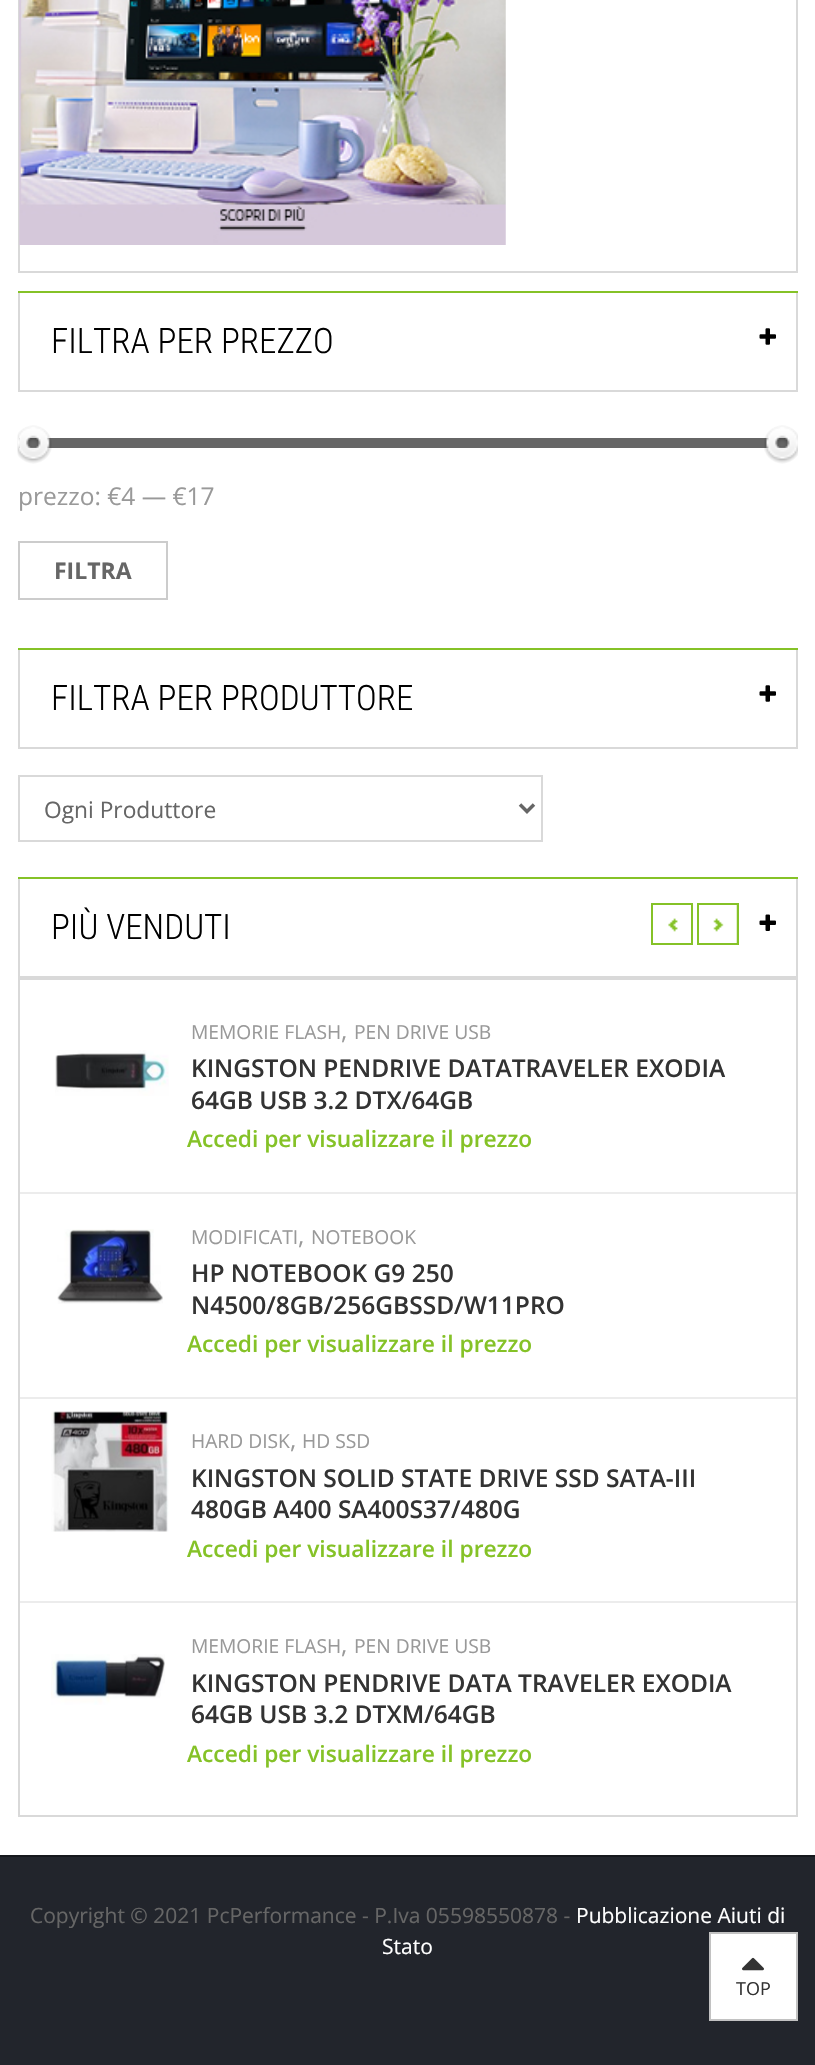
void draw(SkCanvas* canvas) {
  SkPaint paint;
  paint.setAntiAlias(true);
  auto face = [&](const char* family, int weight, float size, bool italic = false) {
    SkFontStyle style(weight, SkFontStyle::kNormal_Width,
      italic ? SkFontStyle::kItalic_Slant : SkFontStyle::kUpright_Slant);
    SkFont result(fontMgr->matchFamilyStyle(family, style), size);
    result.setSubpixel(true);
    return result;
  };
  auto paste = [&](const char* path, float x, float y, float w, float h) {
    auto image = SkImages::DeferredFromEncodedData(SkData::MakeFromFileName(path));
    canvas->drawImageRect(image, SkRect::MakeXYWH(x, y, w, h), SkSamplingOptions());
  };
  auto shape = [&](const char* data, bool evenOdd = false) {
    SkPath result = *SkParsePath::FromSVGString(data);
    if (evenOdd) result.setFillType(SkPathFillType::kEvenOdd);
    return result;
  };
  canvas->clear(0xffffffff);
  paint.setStroke(true);
  paint.setStrokeWidth(2);
  paint.setColor(0xffd9d9d9);
  canvas->drawRect(SkRect::MakeXYWH(19, -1, 778, 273), paint);
  paste("img/1.png", 19, 0, 487, 245);
  canvas->drawRect(SkRect::MakeXYWH(19, 292, 778, 99), paint);
  paint.setStroke(false);
  paint.setColor(0xff85c227);
  canvas->drawRect(SkRect::MakeXYWH(18, 291, 780, 2), paint);
  paste("img/2.png", 759, 328, 17, 17);
  paint.setColor(0xff666666);
  canvas->drawRect(SkRect::MakeXYWH(19, 438, 777, 10), paint);
  paste("img/3.png", 17, 425, 35, 39);
  paste("img/4.png", 764, 425, 34, 39);
  paint.setStroke(true);
  paint.setColor(0xffcccccc);
  canvas->drawRect(SkRect::MakeXYWH(19, 542, 148, 57), paint);
  paint.setColor(0xffd9d9d9);
  canvas->drawRect(SkRect::MakeXYWH(19, 649, 778, 99), paint);
  paint.setStroke(false);
  paint.setColor(0xff85c227);
  canvas->drawRect(SkRect::MakeXYWH(18, 648, 780, 2), paint);
  paste("img/2.png", 759, 685, 17, 17);
  paint.setStroke(true);
  paint.setColor(0xffd9d9d9);
  canvas->drawRect(SkRect::MakeXYWH(19, 776, 523, 65), paint);
  paint.setStrokeWidth(3.5f);
  paint.setColor(0xff666666);
  canvas->drawPath(shape("M520 804.5L527 811.5L534 804.5"), paint);
  paint.setStrokeWidth(2);
  paint.setColor(0xffd9d9d9);
  canvas->drawRect(SkRect::MakeXYWH(19, 878, 778, 99), paint);
  paint.setStroke(false);
  paint.setColor(0xff85c227);
  canvas->drawRect(SkRect::MakeXYWH(18, 877, 780, 2), paint);
  paste("img/5.png", 759, 914, 17, 17);
  paint.setStroke(true);
  paint.setColor(0xffd9d9d9);
  canvas->drawRect(SkRect::MakeXYWH(19, 979, 778, 837), paint);
  paint.setStroke(false);
  paint.setColor(0xff85c227);
  canvas->drawRect(SkRect::MakeXYWH(668, 918, 10, 14), paint);
  paste("img/6.png", 653, 905, 38, 38);
  paint.setStroke(true);
  canvas->drawRect(SkRect::MakeXYWH(652, 904, 40, 40), paint);
  paint.setStroke(false);
  canvas->drawRect(SkRect::MakeXYWH(713, 905, 24, 38), paint);
  paste("img/7.png", 699, 905, 38, 38);
  paint.setStroke(true);
  canvas->drawRect(SkRect::MakeXYWH(698, 904, 40, 40), paint);
  paste("img/8.png", 55, 1050, 114, 46);
  paint.setStroke(false);
  paint.setColor(0x80d9d9d9);
  canvas->drawRect(SkRect::MakeXYWH(19, 1192, 777, 2), paint);
  paste("img/9.png", 57, 1229, 106, 75);
  canvas->drawRect(SkRect::MakeXYWH(19, 1397, 777, 2), paint);
  paste("img/10.png", 51, 1411, 118, 121);
  canvas->drawRect(SkRect::MakeXYWH(19, 1601, 777, 2), paint);
  paste("img/11.png", 51, 1654, 114, 51);
  {
    const struct { float x, y, w, h; SkColor color; } items[] = {
      {0, 1857, 815, 208, 0xff22252c},
      {0, 1855, 815, 2, 0xff16181d},
      {711, 1934, 85, 85, 0xffffffff},
    };
    for (auto [x, y, w, h, color] : items) {
      paint.setColor(color);
      canvas->drawRect(SkRect::MakeXYWH(x, y, w, h), paint);
    }
  }
  paste("img/12.png", 742, 1957, 22, 14);
  paint.setStroke(true);
  paint.setColor(0xffc2c2c2);
  canvas->drawRect(SkRect::MakeXYWH(710, 1933, 87, 87), paint);
  auto f0 = face("Roboto Condensed", 300, 35);
  paint.setStroke(false);
  paint.setColor(0xff000000);
  canvas->drawString("FILTRA PER PREZZO", 51, 353, f0, paint);
  auto f1 = face("Open Sans", 400, 24.5f);
  paint.setColor(0xff999999);
  canvas->drawString("prezzo: €4 — €17", 18, 505, f1, paint);
  auto f2 = face("Open Sans", 700, 23);
  paint.setColor(0xff666666);
  canvas->drawString("FILTRA", 54, 579, f2, paint);
  paint.setColor(0xff000000);
  canvas->drawString("FILTRA PER PRODUTTORE", 51, 710, f0, paint);
  auto f3 = face("Open Sans", 400, 22.75f);
  paint.setColor(0xff666666);
  canvas->drawString("Ogni Produttore", 44, 818, f3, paint);
  paint.setColor(0xff000000);
  canvas->drawString("PIÙ VENDUTI", 51, 939, f0, paint);
  auto f4 = face("Open Sans", 400, 19.25f);
  paint.setColor(0xff999999);
  canvas->drawString("MEMORIE FLASH", 191, 1039, f4, paint);
  canvas->drawString(",", 341, 1039, f1, paint);
  canvas->drawString("PEN DRIVE USB", 354, 1039, f4, paint);
  auto f5 = face("Open Sans", 600, 24.5f);
  paint.setColor(0xff333333);
  canvas->drawString("KINGSTON PENDRIVE DATATRAVELER EXODIA", 191, 1077, f5, paint);
  canvas->drawString("64GB USB 3.2 DTX/64GB", 191, 1109, f5, paint);
  auto f6 = face("Open Sans", 600, 22.75f);
  paint.setColor(0xff85c227);
  canvas->drawString("Accedi per visualizzare il prezzo", 187, 1147, f6, paint);
  paint.setColor(0xff999999);
  canvas->drawString("MODIFICATI", 191, 1244, f4, paint);
  canvas->drawString(",", 298, 1244, f1, paint);
  canvas->drawString("NOTEBOOK", 311, 1244, f4, paint);
  paint.setColor(0xff333333);
  canvas->drawString("HP NOTEBOOK G9 250", 191, 1282, f5, paint);
  canvas->drawString("N4500/8GB/256GBSSD/W11PRO", 191, 1314, f5, paint);
  paint.setColor(0xff85c227);
  canvas->drawString("Accedi per visualizzare il prezzo", 187, 1352, f6, paint);
  paint.setColor(0xff999999);
  canvas->drawString("HARD DISK", 191, 1448, f4, paint);
  canvas->drawString(",", 290, 1448, f1, paint);
  canvas->drawString("HD SSD", 302, 1448, f4, paint);
  paint.setColor(0xff333333);
  canvas->drawString("KINGSTON SOLID STATE DRIVE SSD SATA-III", 191, 1487, f5, paint);
  canvas->drawString("480GB A400 SA400S37/480G", 191, 1518, f5, paint);
  paint.setColor(0xff85c227);
  canvas->drawString("Accedi per visualizzare il prezzo", 187, 1557, f6, paint);
  paint.setColor(0xff999999);
  canvas->drawString("MEMORIE FLASH", 191, 1653, f4, paint);
  canvas->drawString(",", 341, 1653, f1, paint);
  canvas->drawString("PEN DRIVE USB", 354, 1653, f4, paint);
  paint.setColor(0xff333333);
  canvas->drawString("KINGSTON PENDRIVE DATA TRAVELER EXODIA", 191, 1692, f5, paint);
  canvas->drawString("64GB USB 3.2 DTXM/64GB", 191, 1723, f5, paint);
  paint.setColor(0xff85c227);
  canvas->drawString("Accedi per visualizzare il prezzo", 187, 1762, f6, paint);
  auto f7 = face("Open Sans", 400, 21);
  paint.setColor(0xff666666);
  canvas->drawString("Copyright © 2021 PcPerformance - P.Iva 05598550878 -", 30, 1923, f7, paint);
  paint.setColor(0xffffffff);
  canvas->drawString("Pubblicazione Aiuti di", 576, 1923, f7, paint);
  canvas->drawString("Stato", 382, 1954, f7, paint);
  auto f8 = face("Open Sans", 400, 18);
  paint.setColor(0xff333333);
  canvas->drawString("TOP", 736, 1995, f8, paint);
}
